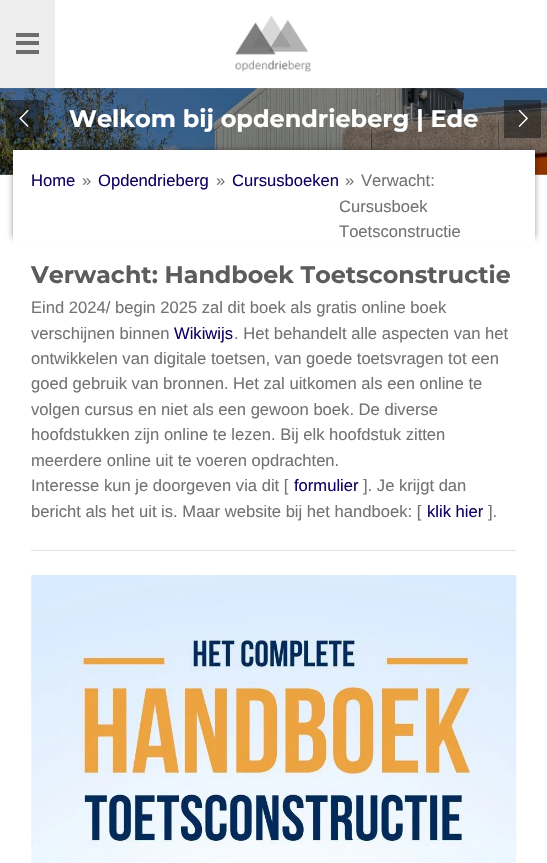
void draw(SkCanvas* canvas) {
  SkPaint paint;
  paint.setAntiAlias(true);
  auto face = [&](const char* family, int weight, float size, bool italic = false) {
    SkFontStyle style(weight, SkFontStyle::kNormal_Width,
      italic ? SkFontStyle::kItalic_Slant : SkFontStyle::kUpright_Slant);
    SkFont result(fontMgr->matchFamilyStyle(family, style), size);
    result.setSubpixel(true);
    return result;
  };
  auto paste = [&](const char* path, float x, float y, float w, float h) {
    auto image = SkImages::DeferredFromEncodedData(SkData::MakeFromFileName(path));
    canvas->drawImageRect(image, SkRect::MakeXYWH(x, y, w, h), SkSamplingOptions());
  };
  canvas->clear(0xffffffff);
  {
    const struct { float x, y, w, h; SkColor color; } items[] = {
      {0, 0, 55, 88, 0xffededed},
      {16, 41, 23, 4, 0xff6d6d6d},
      {16, 33, 23, 4, 0xff6d6d6d},
      {16, 50, 23, 4, 0xff6d6d6d},
    };
    for (auto [x, y, w, h, color] : items) {
      paint.setColor(color);
      canvas->drawRect(SkRect::MakeXYWH(x, y, w, h), paint);
    }
  }
  paste("img/1.png", 235, 16, 76, 56);
  paste("img/4.png", 0, 88, 547, 87);
  paint.setColor(0x800f0f0f);
  canvas->drawRect(SkRect::MakeXYWH(6, 100, 38, 38), paint);
  paste("img/2.png", 19, 110, 10, 17);
  canvas->drawRect(SkRect::MakeXYWH(504, 100, 37, 38), paint);
  paste("img/3.png", 518, 110, 10, 17);
  paint.setColor(0x66000000);
  paint.setMaskFilter(SkMaskFilter::MakeBlur(kNormal_SkBlurStyle, 3));
  canvas->drawRect(SkRect::MakeXYWH(13, 150, 522, 88), paint);
  paint.setMaskFilter(nullptr);
  paint.setColor(0xffffffff);
  canvas->drawRect(SkRect::MakeXYWH(13, 150, 522, 94), paint);
  paint.setColor(0xffe3e3e3);
  canvas->drawRect(SkRect::MakeXYWH(31, 550, 485, 1), paint);
  paste("img/5.png", 31, 575, 486, 288);
  auto f0 = face("Montserrat", 700, 24);
  paint.setColor(0xffffffff);
  canvas->drawString("Welkom bij opdendrieberg | Ede", 69, 127, f0, paint);
  auto f1 = face("Liberation Sans", 400, 16.6f);
  paint.setColor(0xff11035f);
  canvas->drawString("Home", 31, 186, f1, paint);
  paint.setColor(0xff737373);
  canvas->drawString("»", 82, 186, f1, paint);
  paint.setColor(0xff11035f);
  canvas->drawString("Opdendrieberg", 98, 186, f1, paint);
  paint.setColor(0xff737373);
  canvas->drawString("»", 216, 186, f1, paint);
  paint.setColor(0xff11035f);
  canvas->drawString("Cursusboeken", 232, 186, f1, paint);
  paint.setColor(0xff737373);
  {
    const struct { const char* s; float x, y; } items[] = {
      {"»", 345, 186},
      {"Verwacht:", 361, 186},
      {"Cursusboek", 339, 212},
      {"Toetsconstructie", 339, 237},
    };
    for (auto [s, x, y] : items) {
      canvas->drawString(s, x, y, f1, paint);
    }
  }
  auto f2 = face("Montserrat", 700, 23.75f);
  paint.setColor(0xff5c5c5c);
  canvas->drawString("Verwacht: Handboek Toetsconstructie", 31, 283, f2, paint);
  paint.setColor(0xff737373);
  canvas->drawString("Eind 2024/ begin 2025 zal dit boek als gratis online boek", 31, 313, f1, paint);
  canvas->drawString("verschijnen binnen", 31, 339, f1, paint);
  paint.setColor(0xff11035f);
  canvas->drawString("Wikiwijs", 174, 339, f1, paint);
  paint.setColor(0xff737373);
  {
    const struct { const char* s; float x, y; } items[] = {
      {". Het behandelt alle aspecten van het", 234, 339},
      {"ontwikkelen van digitale toetsen, van goede toetsvragen tot een", 31, 364},
      {"goed gebruik van bronnen. Het zal uitkomen als een online te", 31, 389},
      {"volgen cursus en niet als een gewoon boek. De diverse", 31, 415},
      {"hoofdstukken zijn online te lezen. Bij elk hoofdstuk zitten", 31, 440},
      {"meerdere online uit te voeren opdrachten.", 31, 466},
      {"Interesse kun je doorgeven via dit [", 31, 491},
    };
    for (auto [s, x, y] : items) {
      canvas->drawString(s, x, y, f1, paint);
    }
  }
  paint.setColor(0xff11035f);
  canvas->drawString("formulier", 294, 491, f1, paint);
  paint.setColor(0xff737373);
  canvas->drawString("]. Je krijgt dan", 363, 491, f1, paint);
  canvas->drawString("bericht als het uit is. Maar website bij het handboek: [", 31, 517, f1, paint);
  paint.setColor(0xff11035f);
  canvas->drawString("klik hier", 427, 517, f1, paint);
  paint.setColor(0xff737373);
  canvas->drawString("].", 488, 517, f1, paint);
}
